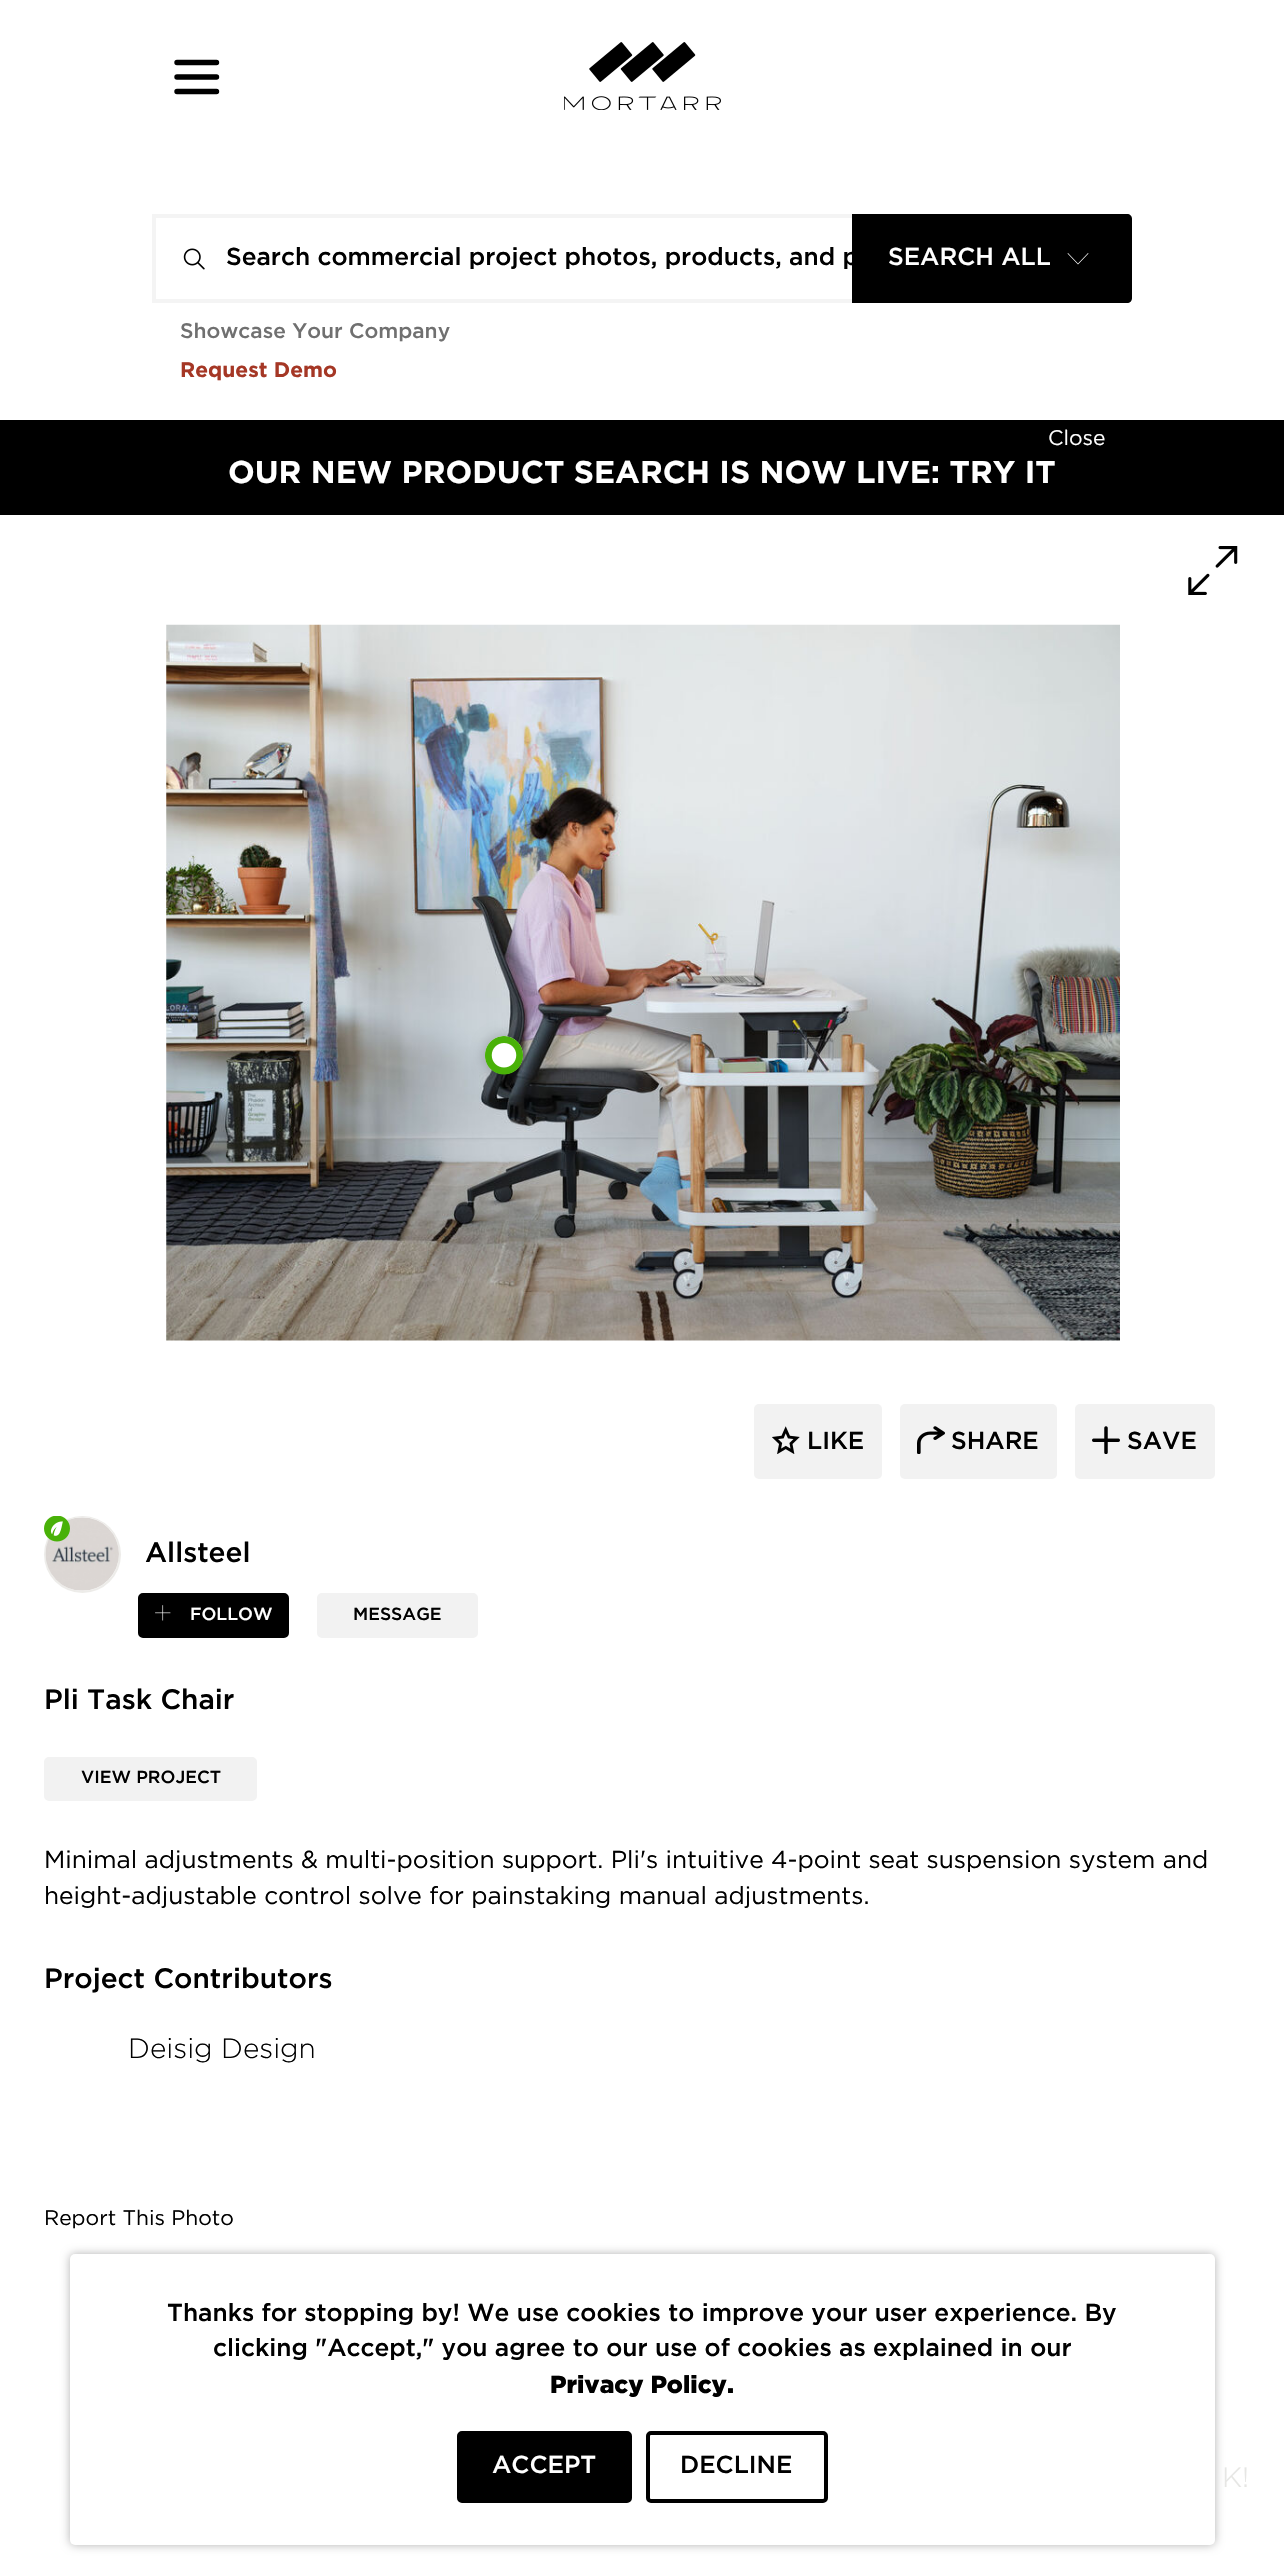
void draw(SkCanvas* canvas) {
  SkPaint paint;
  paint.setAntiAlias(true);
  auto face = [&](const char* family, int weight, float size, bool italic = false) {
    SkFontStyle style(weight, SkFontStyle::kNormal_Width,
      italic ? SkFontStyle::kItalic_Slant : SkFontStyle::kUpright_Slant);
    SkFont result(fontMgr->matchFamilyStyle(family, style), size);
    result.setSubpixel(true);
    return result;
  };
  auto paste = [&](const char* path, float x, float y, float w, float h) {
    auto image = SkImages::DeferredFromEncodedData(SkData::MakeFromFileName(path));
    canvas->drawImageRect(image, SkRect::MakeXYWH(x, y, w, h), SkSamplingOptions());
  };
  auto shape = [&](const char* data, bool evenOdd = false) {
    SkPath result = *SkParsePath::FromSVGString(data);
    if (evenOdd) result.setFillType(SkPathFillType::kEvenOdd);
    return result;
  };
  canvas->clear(0xffffffff);
  paint.setStroke(true);
  paint.setStrokeWidth(5.4f);
  paint.setStrokeCap(SkPaint::kRound_Cap);
  paint.setColor(0xff000000);
  canvas->drawPath(shape("M177 62.5H216.5M177 77H216.5M177 91.5H216.5"), paint);
  paste("img/1.png", 564, 42, 157, 68);
  paste("img/2.png", 183, 248, 22, 22);
  paint.setStroke(false);
  {
    const struct { float x, y, w, h; SkColor color; } items[] = {
      {152, 214, 700, 4, 0xfff4f4f4},
      {152, 299, 700, 4, 0xfff4f4f4},
      {152, 214, 4, 89, 0xfff4f4f4},
    };
    for (auto [x, y, w, h, color] : items) {
      paint.setColor(color);
      canvas->drawRect(SkRect::MakeXYWH(x, y, w, h), paint);
    }
  }
  paint.setColor(0xff000000);
  canvas->drawPath(shape("M852 214H1127C1130 214 1132 216 1132 219V298C1132 301 1130 303 1127 303H852Z"), paint);
  paint.setColor(0x12000000);
  canvas->drawPath(shape("M852 215H1127C1130 215 1132 218 1132 221C1132 218 1132 215 1128 214H852Z"), paint);
  paint.setColor(0xffffffff);
  canvas->drawPath(shape("M1067.5 253.5L1078 264.5L1088.5 253.5L1088 253L1078 263.5L1068 253Z"), paint);
  paint.setColor(0xff000000);
  canvas->drawRect(SkRect::MakeXYWH(0, 420, 1284, 95), paint);
  paste("img/3.png", 1188, 546, 50, 49);
  paste("img/4.png", 166, 624, 954, 717);
  paint.setColor(0x40000000);
  paint.setMaskFilter(SkMaskFilter::MakeBlur(kNormal_SkBlurStyle, 7));
  canvas->drawRoundRect(SkRect::MakeXYWH(485, 1036, 38, 39), 19, 19, paint);
  paint.setMaskFilter(nullptr);
  paste("img/5.png", 485, 1036, 38, 39);
  paint.setColor(0xfff2f2f2);
  canvas->drawRoundRect(SkRect::MakeXYWH(754, 1404, 128, 75), 5, 5, paint);
  paste("img/6.png", 772, 1426, 28, 28);
  canvas->drawRoundRect(SkRect::MakeXYWH(900, 1404, 157, 75), 5, 5, paint);
  paste("img/7.png", 917, 1426, 28, 28);
  canvas->drawRoundRect(SkRect::MakeXYWH(1075, 1404, 140, 75), 5, 5, paint);
  paste("img/8.png", 1092, 1426, 28, 28);
  paint.setColor(0xffedece9);
  canvas->drawCircle(82.5f, 1554.5f, 38.5f, paint);
  paint.setColor(0xffffffff);
  canvas->drawRoundRect(SkRect::MakeXYWH(46, 1517, 73, 74), 36.5f, 36.5f, paint);
  paste("img/9.png", 45, 1517, 74, 74);
  paste("img/10.png", 44, 1516, 26, 26);
  paint.setColor(0xff000000);
  canvas->drawRoundRect(SkRect::MakeXYWH(139, 1594, 149, 43), 4, 4, paint);
  paint.setStroke(true);
  paint.setStrokeWidth(2);
  paint.setStrokeCap(SkPaint::kButt_Cap);
  canvas->drawRoundRect(SkRect::MakeXYWH(139, 1594, 149, 43), 4, 4, paint);
  paste("img/11.png", 155, 1605, 16, 16);
  paint.setStroke(false);
  paint.setColor(0xfff2f2f2);
  canvas->drawRoundRect(SkRect::MakeXYWH(318, 1594, 159, 43), 4, 4, paint);
  paint.setStroke(true);
  canvas->drawRoundRect(SkRect::MakeXYWH(318, 1594, 159, 43), 4, 4, paint);
  paint.setStroke(false);
  canvas->drawRoundRect(SkRect::MakeXYWH(45, 1758, 211, 42), 4, 4, paint);
  paint.setStroke(true);
  canvas->drawRoundRect(SkRect::MakeXYWH(45, 1758, 211, 42), 4, 4, paint);
  paint.setStroke(false);
  paint.setColor(0x4d000000);
  paint.setMaskFilter(SkMaskFilter::MakeBlur(kNormal_SkBlurStyle, 5));
  canvas->drawRoundRect(SkRect::MakeXYWH(70, 2254, 1145, 291), 5, 5, paint);
  paint.setMaskFilter(nullptr);
  paint.setColor(0xffffffff);
  canvas->drawRoundRect(SkRect::MakeXYWH(70, 2254, 1145, 291), 5, 5, paint);
  paint.setColor(0xff000000);
  canvas->drawRoundRect(SkRect::MakeXYWH(459, 2433, 171, 68), 3, 3, paint);
  paint.setStroke(true);
  paint.setStrokeWidth(4);
  canvas->drawRoundRect(SkRect::MakeXYWH(459, 2433, 171, 68), 3, 3, paint);
  canvas->drawRoundRect(SkRect::MakeXYWH(648, 2433, 178, 68), 3, 3, paint);
  auto f0 = face("Gotham", 500, 24.5f);
  paint.setStroke(false);
  canvas->drawString("Search commercial project photos, products, and p", 226, 265, f0, paint);
  paint.setColor(0xffffffff);
  canvas->drawString("SEARCH ALL", 888, 265, f0, paint);
  auto f1 = face("Gotham", 500, 21);
  paint.setColor(0xff707070);
  canvas->drawString("Showcase Your Company", 180, 338, f1, paint);
  auto f2 = face("Gotham", 700, 21);
  paint.setColor(0xffa53725);
  canvas->drawString("Request Demo", 180, 377, f2, paint);
  auto f3 = face("Gotham", 400, 21);
  paint.setColor(0xffffffff);
  canvas->drawString("Close", 1048, 445, f3, paint);
  auto f4 = face("Gotham", 700, 31.5f);
  canvas->drawString("OUR NEW PRODUCT SEARCH IS NOW LIVE: TRY IT", 228, 483, f4, paint);
  paint.setColor(0xff000000);
  {
    const struct { const char* s; float x, y; } items[] = {
      {"LIKE", 807, 1449},
      {"SHARE", 951, 1449},
      {"SAVE", 1127, 1449},
    };
    for (auto [s, x, y] : items) {
      canvas->drawString(s, x, y, f0, paint);
    }
  }
  auto f5 = face("Gotham", 500, 28);
  canvas->drawString("Allsteel", 145, 1562, f5, paint);
  auto f6 = face("Gotham", 500, 17.5f);
  paint.setColor(0xffffffff);
  canvas->drawString("FOLLOW", 190, 1620, f6, paint);
  paint.setColor(0xff000000);
  canvas->drawString("MESSAGE", 353, 1620, f6, paint);
  canvas->drawString("Pli Task Chair", 44, 1709, f5, paint);
  canvas->drawString("VIEW PROJECT", 81, 1783, f6, paint);
  auto f7 = face("Gotham", 400, 24.5f);
  canvas->drawString("Minimal adjustments & multi-position support. Pli's intuitive 4-point seat suspension system and", 44, 1868, f7, paint);
  canvas->drawString("height-adjustable control solve for painstaking manual adjustments.", 44, 1904, f7, paint);
  canvas->drawString("Project Contributors", 44, 1988, f5, paint);
  auto f8 = face("Gotham", 300, 28);
  canvas->drawString("Deisig Design", 128, 2058, f8, paint);
  canvas->drawString("Report This Photo", 44, 2225, f3, paint);
  canvas->drawString("Thanks for stopping by! We use cookies to improve your user experience. By", 167, 2321, f0, paint);
  canvas->drawString("clicking \"Accept,\" you agree to our use of cookies as explained in our", 213, 2356, f0, paint);
  auto f9 = face("Gotham", 900, 24.5f);
  canvas->drawString("Privacy Policy.", 550, 2393, f9, paint);
  paint.setColor(0xffffffff);
  canvas->drawString("ACCEPT", 492, 2473, f0, paint);
  paint.setColor(0xff000000);
  canvas->drawString("DECLINE", 680, 2473, f0, paint);
  paint.setColor(0xffe6e6e4);
  canvas->drawString("K!", 1222, 2487, f8, paint);
}
